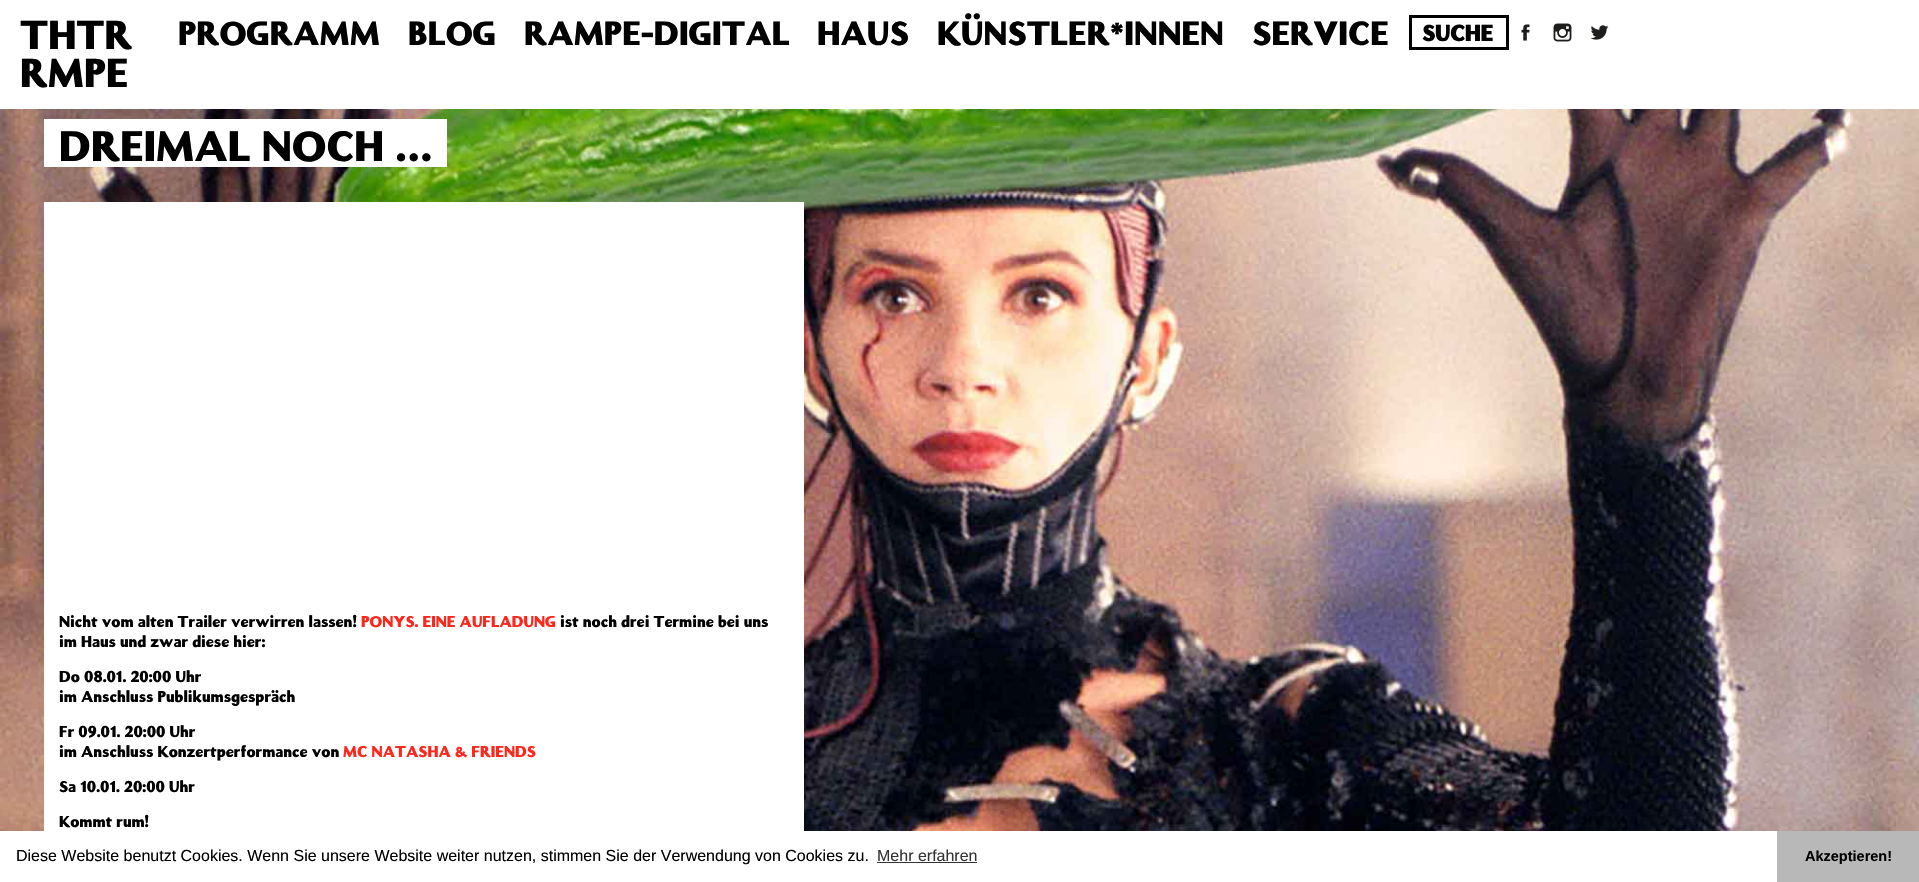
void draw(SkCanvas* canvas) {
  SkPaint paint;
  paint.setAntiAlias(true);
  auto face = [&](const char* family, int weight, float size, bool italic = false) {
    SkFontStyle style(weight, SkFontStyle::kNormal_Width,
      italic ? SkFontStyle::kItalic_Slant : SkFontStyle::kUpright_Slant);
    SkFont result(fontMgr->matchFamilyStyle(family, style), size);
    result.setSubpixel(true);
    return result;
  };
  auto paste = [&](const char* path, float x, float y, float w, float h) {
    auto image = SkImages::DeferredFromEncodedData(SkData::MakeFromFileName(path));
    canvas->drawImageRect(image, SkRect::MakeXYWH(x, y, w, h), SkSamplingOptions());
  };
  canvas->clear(0xffffffff);
  paint.setStroke(true);
  paint.setStrokeWidth(3);
  paint.setColor(0xff000000);
  canvas->drawRect(SkRect::MakeXYWH(1410.5f, 16.5f, 97, 32), paint);
  paste("img/1.png", 1521, 24, 9, 17);
  paste("img/2.png", 1553, 23, 19, 19);
  paste("img/3.png", 1590, 25, 19, 15);
  paste("img/4.png", 0, 109, 1919, 722);
  paint.setStroke(false);
  {
    const struct { float x, y, w, h; SkColor color; } items[] = {
      {44, 119, 403, 48, 0xffffffff},
      {44, 202, 760, 629, 0xffffffff},
      {877, 862, 100, 1, 0xff333333},
      {1777, 831, 142, 51, 0xffb8b8b8},
    };
    for (auto [x, y, w, h, color] : items) {
      paint.setColor(color);
      canvas->drawRect(SkRect::MakeXYWH(x, y, w, h), paint);
    }
  }
  auto f0 = face("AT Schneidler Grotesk", 400, 36);
  paint.setColor(0xff000000);
  canvas->drawString("THTR", 20, 49, f0, paint);
  canvas->drawString("RMPE", 20, 87, f0, paint);
  auto f1 = face("AT Schneidler Grotesk", 400, 30);
  {
    const struct { const char* s; float x, y; } items[] = {
      {"PROGRAMM", 178, 45},
      {"BLOG", 408, 45},
      {"RAMPE-DIGITAL", 524, 45},
      {"HAUS", 817, 45},
      {"KÜNSTLER*INNEN", 937, 45},
      {"SERVICE", 1252, 45},
    };
    for (auto [s, x, y] : items) {
      canvas->drawString(s, x, y, f1, paint);
    }
  }
  auto f2 = face("AT Schneidler Grotesk", 700, 20);
  canvas->drawString("SUCHE", 1422, 41, f2, paint);
  auto f3 = face("AT Schneidler Grotesk", 400, 38);
  canvas->drawString("DREIMAL NOCH …", 59, 161, f3, paint);
  auto f4 = face("AT Schneidler Grotesk", 400, 14);
  canvas->drawString("Nicht vom alten Trailer verwirren lassen!", 59, 627, f4, paint);
  paint.setColor(0xffff261b);
  canvas->drawString("PONYS. EINE AUFLADUNG", 361, 627, f4, paint);
  paint.setColor(0xff000000);
  {
    const struct { const char* s; float x, y; } items[] = {
      {"ist noch drei Termine bei uns", 560, 627},
      {"im Haus und zwar diese hier:", 59, 647},
      {"Do 08.01. 20:00 Uhr", 59, 682},
      {"im Anschluss Publikumsgespräch", 59, 702},
      {"Fr 09.01. 20:00 Uhr", 59, 737},
      {"im Anschluss Konzertperformance von", 59, 757},
    };
    for (auto [s, x, y] : items) {
      canvas->drawString(s, x, y, f4, paint);
    }
  }
  paint.setColor(0xffff261b);
  canvas->drawString("MC NATASHA & FRIENDS", 343, 757, f4, paint);
  paint.setColor(0xff000000);
  canvas->drawString("Sa 10.01. 20:00 Uhr", 59, 792, f4, paint);
  canvas->drawString("Kommt rum!", 59, 827, f4, paint);
  auto f5 = face("Liberation Sans", 400, 16);
  canvas->drawString("Diese Website benutzt Cookies. Wenn Sie unsere Website weiter nutzen, stimmen Sie der Verwendung von Cookies zu.", 16, 861, f5, paint);
  paint.setColor(0xff333333);
  canvas->drawString("Mehr erfahren", 877, 861, f5, paint);
  auto f6 = face("Liberation Sans", 700, 14.5f);
  paint.setColor(0xff000000);
  canvas->drawString("Akzeptieren!", 1805, 861, f6, paint);
}
